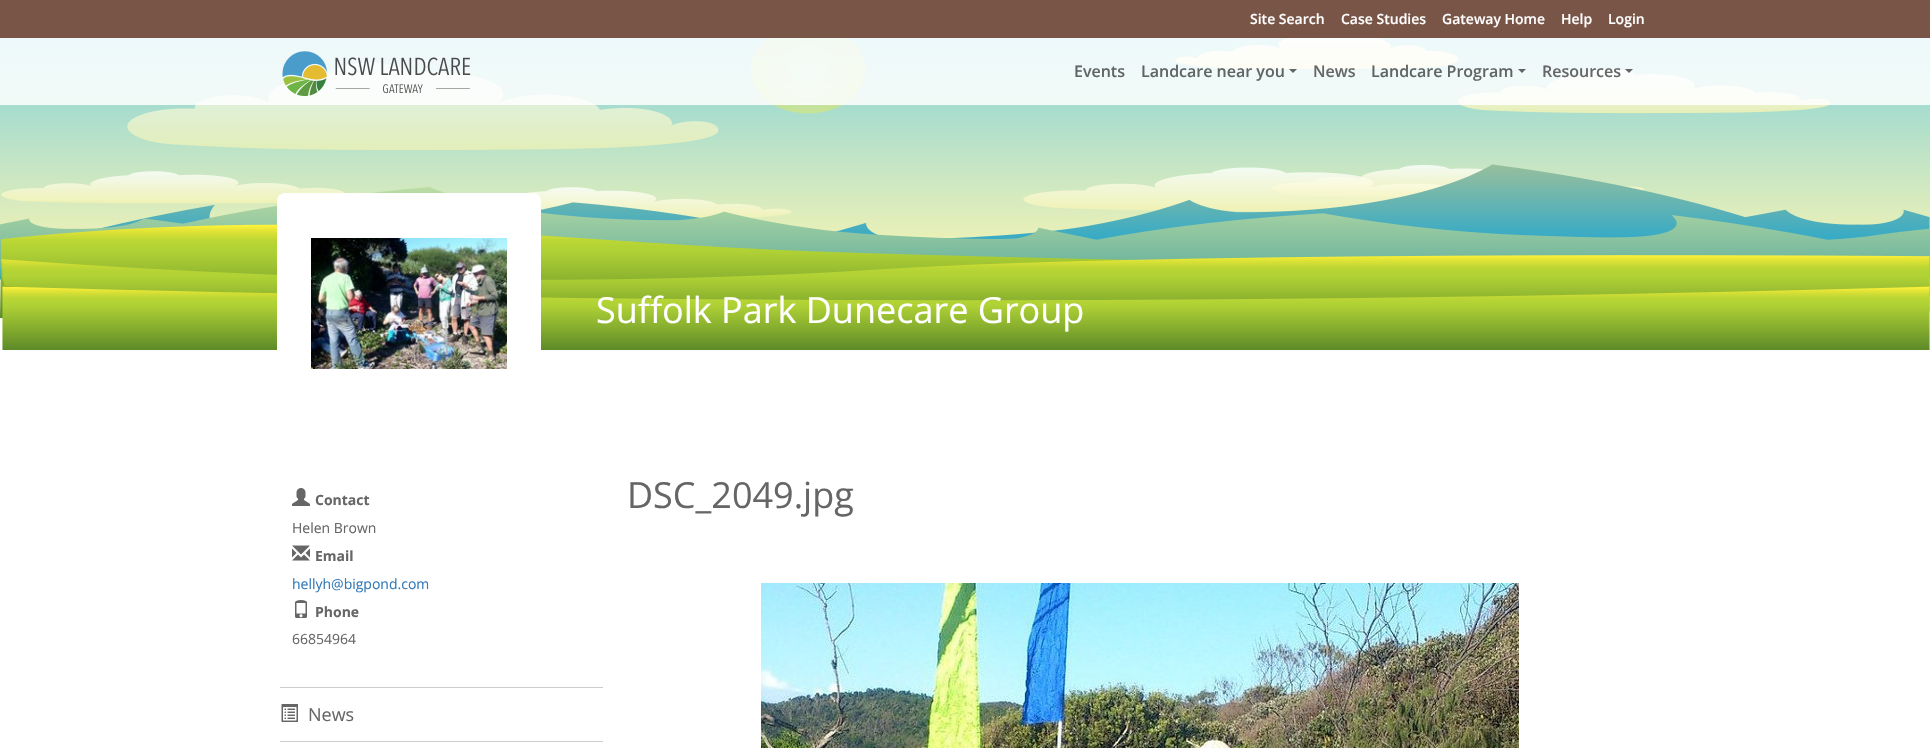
void draw(SkCanvas* canvas) {
  SkPaint paint;
  paint.setAntiAlias(true);
  auto face = [&](const char* family, int weight, float size, bool italic = false) {
    SkFontStyle style(weight, SkFontStyle::kNormal_Width,
      italic ? SkFontStyle::kItalic_Slant : SkFontStyle::kUpright_Slant);
    SkFont result(fontMgr->matchFamilyStyle(family, style), size);
    result.setSubpixel(true);
    return result;
  };
  auto paste = [&](const char* path, float x, float y, float w, float h) {
    auto image = SkImages::DeferredFromEncodedData(SkData::MakeFromFileName(path));
    canvas->drawImageRect(image, SkRect::MakeXYWH(x, y, w, h), SkSamplingOptions());
  };
  auto shape = [&](const char* data, bool evenOdd = false) {
    SkPath result = *SkParsePath::FromSVGString(data);
    if (evenOdd) result.setFillType(SkPathFillType::kEvenOdd);
    return result;
  };
  canvas->clear(0xffffffff);
  paint.setColor(0xff795548);
  canvas->drawRect(SkRect::MakeXYWH(0, 0, 1930, 38), paint);
  paste("img/2.png", 0, 38, 1930, 312);
  paint.setColor(0xd9ffffff);
  canvas->drawRect(SkRect::MakeXYWH(0, 38, 1930, 67), paint);
  paste("img/1.png", 282, 51, 189, 45);
  paint.setColor(0xff606463);
  canvas->drawPath(shape("M1289 69H1297L1293 73Z"), paint);
  canvas->drawPath(shape("M1518 69H1526L1522 73Z"), paint);
  paint.setColor(0x99000000);
  canvas->drawPath(shape("M1625 69H1633L1629 73Z"), paint);
  paint.setColor(0xffffffff);
  canvas->drawRoundRect(SkRect::MakeXYWH(277, 193, 264, 220), 8, 8, paint);
  paste("img/3.png", 311, 238, 196, 131);
  paste("img/4.png", 292, 488, 18, 18);
  paste("img/5.png", 292, 545, 18, 16);
  paste("img/6.png", 295, 600, 12, 18);
  paint.setColor(0xffcccccc);
  canvas->drawRect(SkRect::MakeXYWH(280, 687, 323, 1), paint);
  canvas->drawRect(SkRect::MakeXYWH(280, 741, 323, 1), paint);
  paste("img/7.png", 281, 704, 17, 18);
  paste("img/8.png", 761, 583, 758, 165);
  auto f0 = face("Open Sans", 600, 14);
  paint.setColor(0xffffffff);
  {
    const struct { const char* s; float x, y; } items[] = {
      {"Site Search", 1250, 24},
      {"Case Studies", 1341, 24},
      {"Gateway Home", 1442, 24},
      {"Help", 1561, 24},
      {"Login", 1608, 24},
    };
    for (auto [s, x, y] : items) {
      canvas->drawString(s, x, y, f0, paint);
    }
  }
  auto f1 = face("Open Sans", 600, 16);
  paint.setColor(0xff606463);
  canvas->drawString("Events", 1074, 77, f1, paint);
  canvas->drawString("Landcare near you", 1141, 77, f1, paint);
  paint.setColor(0xff666666);
  canvas->drawString("News", 1313, 77, f1, paint);
  paint.setColor(0xff606463);
  canvas->drawString("Landcare Program", 1371, 77, f1, paint);
  paint.setColor(0xff666666);
  canvas->drawString("Resources", 1542, 77, f1, paint);
  auto f2 = face("Open Sans", 400, 36);
  paint.setColor(0xffffffff);
  canvas->drawString("Suffolk Park Dunecare Group", 596, 323, f2, paint);
  auto f3 = face("Open Sans", 700, 14);
  paint.setColor(0xff666666);
  canvas->drawString("Contact", 315, 505, f3, paint);
  auto f4 = face("Open Sans", 400, 14);
  canvas->drawString("Helen Brown", 292, 533, f4, paint);
  canvas->drawString("Email", 315, 561, f3, paint);
  paint.setColor(0xff337ab7);
  canvas->drawString("hellyh@bigpond.com", 292, 589, f4, paint);
  paint.setColor(0xff666666);
  canvas->drawString("Phone", 315, 617, f3, paint);
  canvas->drawString("66854964", 292, 644, f4, paint);
  auto f5 = face("Open Sans", 400, 18);
  canvas->drawString("News", 308, 721, f5, paint);
  canvas->drawString("DSC_2049.jpg", 627, 508, f2, paint);
}
